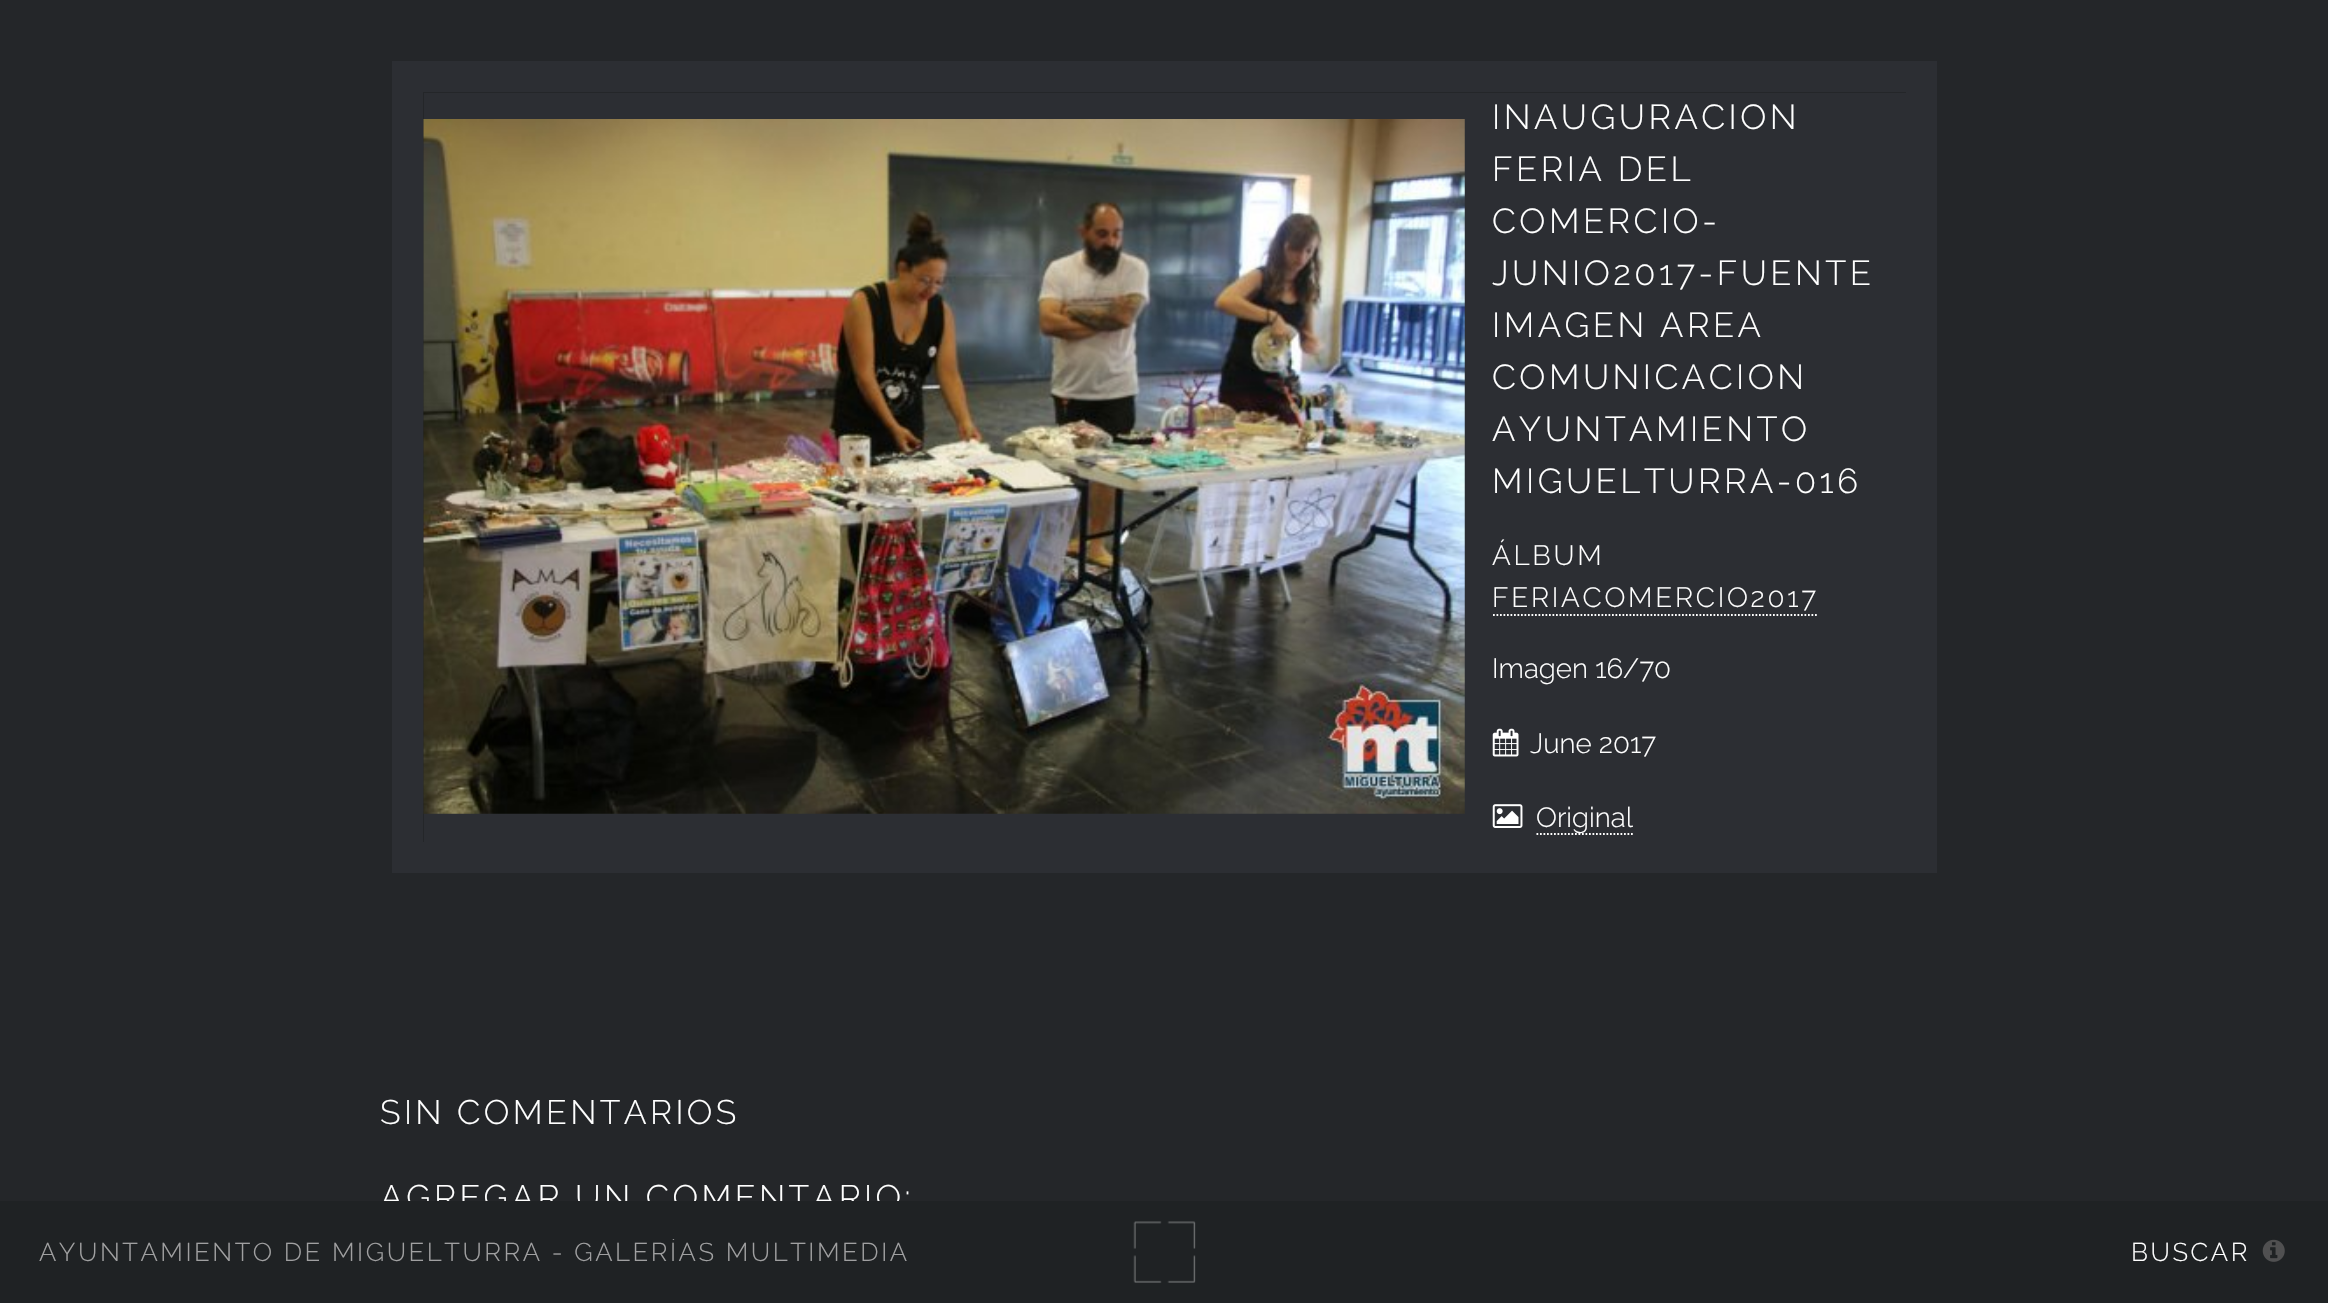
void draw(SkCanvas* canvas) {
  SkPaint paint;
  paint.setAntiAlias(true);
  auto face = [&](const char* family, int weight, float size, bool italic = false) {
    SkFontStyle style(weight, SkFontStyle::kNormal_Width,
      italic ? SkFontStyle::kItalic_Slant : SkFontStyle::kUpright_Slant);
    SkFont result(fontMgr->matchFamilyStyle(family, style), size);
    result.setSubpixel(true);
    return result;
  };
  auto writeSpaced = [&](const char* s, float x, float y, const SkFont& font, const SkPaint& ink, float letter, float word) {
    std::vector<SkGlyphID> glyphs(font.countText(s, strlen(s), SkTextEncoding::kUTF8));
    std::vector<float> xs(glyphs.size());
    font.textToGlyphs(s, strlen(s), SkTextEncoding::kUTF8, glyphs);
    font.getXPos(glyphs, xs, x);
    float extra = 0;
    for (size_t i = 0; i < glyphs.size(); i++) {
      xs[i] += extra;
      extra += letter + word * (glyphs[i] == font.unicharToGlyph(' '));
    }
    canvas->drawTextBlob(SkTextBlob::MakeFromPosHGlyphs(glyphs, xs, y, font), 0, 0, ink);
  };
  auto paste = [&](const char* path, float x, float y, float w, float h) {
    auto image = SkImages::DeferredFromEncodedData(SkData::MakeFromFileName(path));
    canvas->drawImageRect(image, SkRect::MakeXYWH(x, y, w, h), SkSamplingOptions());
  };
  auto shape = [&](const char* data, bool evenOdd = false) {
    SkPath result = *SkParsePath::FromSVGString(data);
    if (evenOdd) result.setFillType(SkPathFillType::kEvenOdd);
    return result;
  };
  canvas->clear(0xff242629);
  paint.setStroke(true);
  paint.setStrokeWidth(31);
  paint.setColor(0xff2c2e33);
  canvas->drawRect(SkRect::MakeXYWH(407.5f, 76.5f, 1514, 781), paint);
  paint.setStroke(false);
  canvas->drawRect(SkRect::MakeXYWH(424, 93, 1482, 749), paint);
  paste("img/1.png", 423, 119, 1042, 695);
  paint.setStroke(true);
  paint.setStrokeWidth(1.8f);
  paint.setColor(0xffffffff);
  paint.setPathEffect(SkDashPathEffect::Make({{1.75f, 1.75f}}, 0));
  canvas->drawPath(shape("M1493 615H1818"), paint);
  paint.setPathEffect(nullptr);
  paste("img/2.png", 1492, 728, 27, 29);
  paste("img/3.png", 1492, 804, 31, 24);
  paint.setPathEffect(SkDashPathEffect::Make({{1.75f, 1.75f}}, 0));
  canvas->drawPath(shape("M1536.5 834H1633"), paint);
  paint.setPathEffect(nullptr);
  auto f0 = face("Raleway", 300, 34.6f);
  paint.setStroke(false);
  {
    const struct { const char* s; float x, y; } items[] = {
      {"INAUGURACION", 1492, 129},
      {"FERIA DEL", 1492, 181},
      {"COMERCIO-", 1492, 233},
      {"JUNIO2017-FUENTE", 1492, 285},
      {"IMAGEN AREA", 1492, 337},
      {"COMUNICACION", 1492, 389},
      {"AYUNTAMIENTO", 1492, 441},
      {"MIGUELTURRA-016", 1492, 493},
    };
    for (auto [s, x, y] : items) {
      writeSpaced(s, x, y, f0, paint, 3.5f, 0);
    }
  }
  auto f1 = face("Raleway", 300, 27.75f);
  writeSpaced("ÁLBUM", 1492, 565, f1, paint, 2.75f, 0);
  writeSpaced("FERIACOMERCIO2017", 1492, 607, f1, paint, 2.75f, 0);
  {
    const struct { const char* s; float x, y; } items[] = {
      {"Imagen 16/70", 1492, 678},
      {"June 2017", 1530, 753},
      {"Original", 1536, 827},
    };
    for (auto [s, x, y] : items) {
      canvas->drawString(s, x, y, f1, paint);
    }
  }
  auto f2 = face("Raleway", 300, 33.9f);
  writeSpaced("SIN COMENTARIOS", 380, 1124, f2, paint, 3.4f, 0);
  writeSpaced("AGREGAR UN COMENTARIO:", 380, 1209, f2, paint, 3.4f, 0);
  paint.setColor(0xff1f2224);
  canvas->drawRect(SkRect::MakeXYWH(0, 1201, 2328, 102), paint);
  canvas->save();
  canvas->clipRect(SkRect::MakeXYWH(39, 1239, 871, 26));
  auto f3 = face("Raleway", 300, 25.65f);
  paint.setColor(0xffa0a0a1);
  writeSpaced("AYUNTAMIENTO DE MIGUELTURRA - GALERÍAS MULTIMEDIA", 39, 1261, f3, paint, 2.55f, 0);
  canvas->restore();
  paste("img/4.png", 1133, 1221, 63, 62);
  paint.setColor(0xffffffff);
  writeSpaced("BUSCAR", 2131, 1261, f3, paint, 2.55f, 0);
  paste("img/5.png", 2262, 1239, 23, 23);
}
